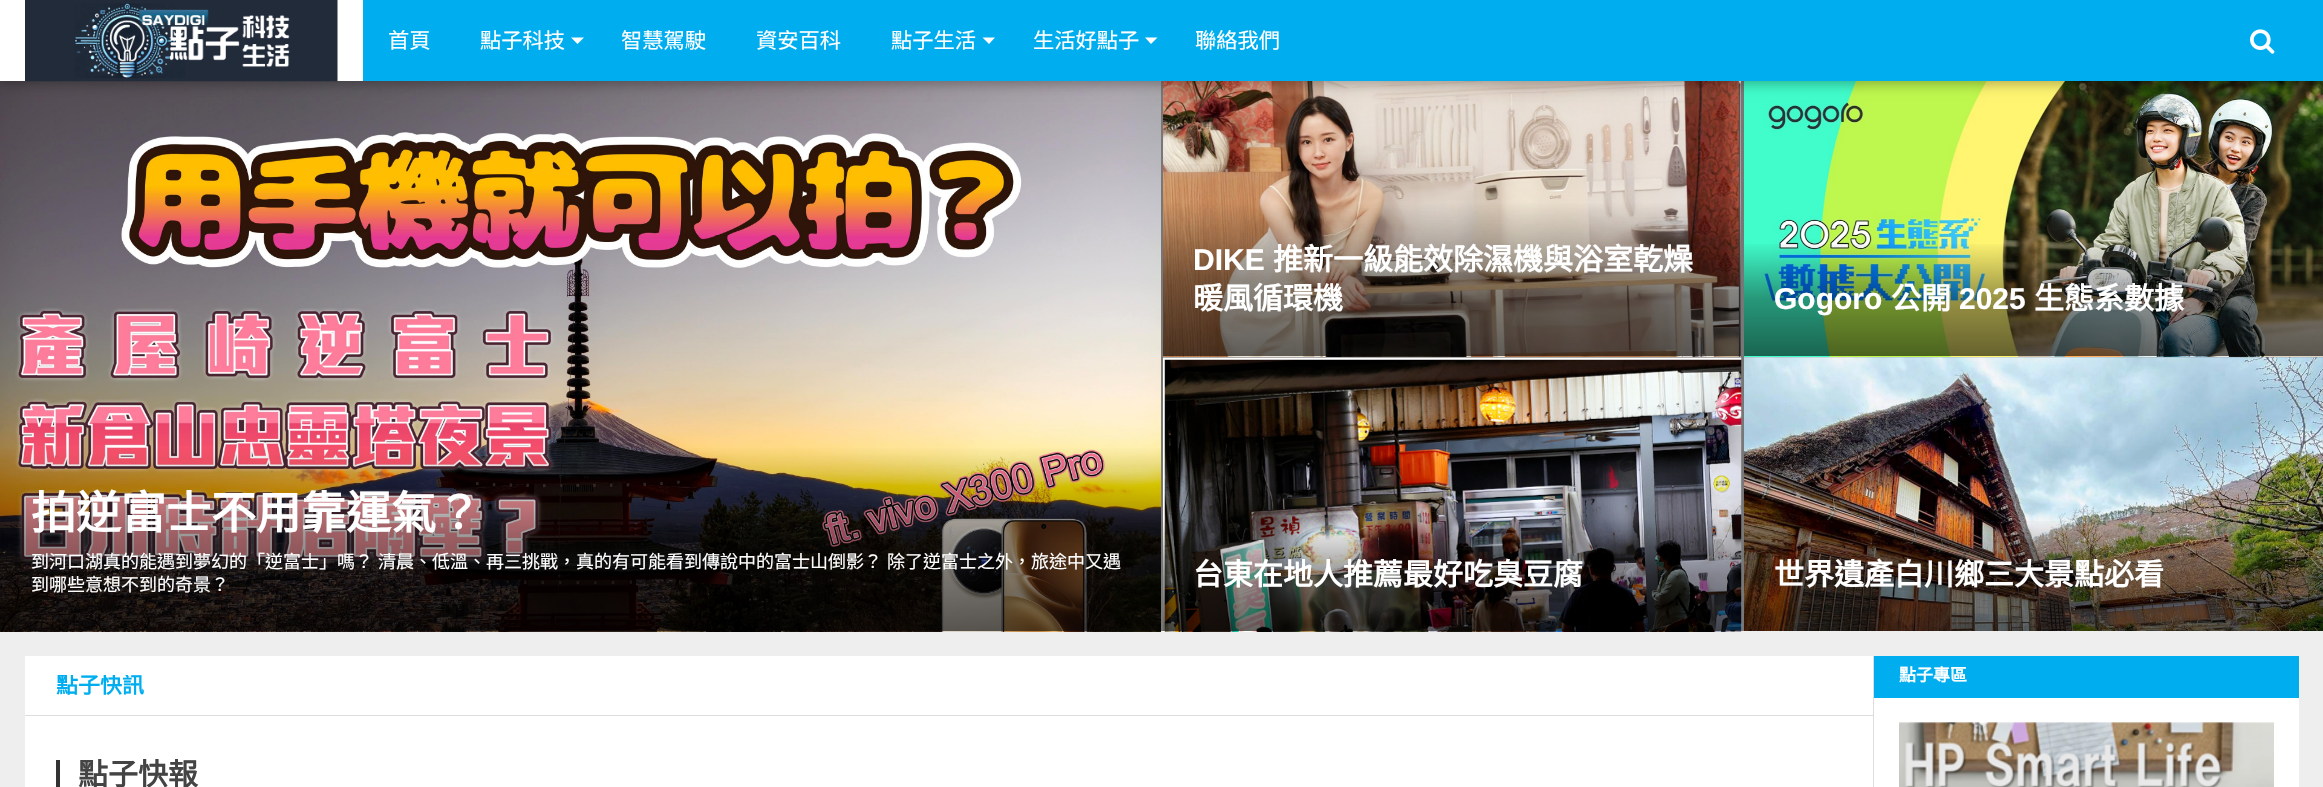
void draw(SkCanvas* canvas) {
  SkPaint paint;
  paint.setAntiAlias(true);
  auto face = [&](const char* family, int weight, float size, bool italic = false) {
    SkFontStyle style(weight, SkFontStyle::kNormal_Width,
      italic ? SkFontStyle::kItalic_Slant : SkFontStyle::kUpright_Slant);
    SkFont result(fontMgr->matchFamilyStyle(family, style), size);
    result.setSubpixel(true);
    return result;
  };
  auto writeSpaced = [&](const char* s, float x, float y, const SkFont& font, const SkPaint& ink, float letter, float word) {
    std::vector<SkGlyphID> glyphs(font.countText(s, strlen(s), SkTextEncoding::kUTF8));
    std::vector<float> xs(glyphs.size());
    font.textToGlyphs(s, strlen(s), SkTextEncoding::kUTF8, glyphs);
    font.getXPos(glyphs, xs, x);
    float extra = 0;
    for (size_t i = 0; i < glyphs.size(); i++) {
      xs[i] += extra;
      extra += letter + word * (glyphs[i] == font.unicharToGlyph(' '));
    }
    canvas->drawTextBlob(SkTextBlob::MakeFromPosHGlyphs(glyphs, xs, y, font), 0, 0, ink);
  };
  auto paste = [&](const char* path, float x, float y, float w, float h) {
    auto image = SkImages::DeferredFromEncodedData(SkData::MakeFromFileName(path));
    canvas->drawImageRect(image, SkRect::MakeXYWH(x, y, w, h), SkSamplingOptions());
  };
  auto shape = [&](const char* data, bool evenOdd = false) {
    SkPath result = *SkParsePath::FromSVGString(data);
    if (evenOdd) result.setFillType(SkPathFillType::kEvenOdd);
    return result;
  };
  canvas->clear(0xffeeeeee);
  paint.setColor(0xff777777);
  canvas->drawRect(SkRect::MakeXYWH(1161, 81, 1162, 550), paint);
  paste("img/3.png", 0, 81, 1161, 551);
  paste("img/4.png", 1163, 81, 578, 276);
  paste("img/5.png", 1744, 81, 579, 276);
  paint.setColor(0x4d000000);
  paint.setMaskFilter(SkMaskFilter::MakeBlur(kNormal_SkBlurStyle, 6));
  canvas->drawRect(SkRect::MakeXYWH(0, 3, 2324, 81), paint);
  paint.setMaskFilter(nullptr);
  paint.setColor(0xffffffff);
  canvas->drawRect(SkRect::MakeXYWH(0, 0, 363, 81), paint);
  paste("img/1.png", 25, 0, 313, 82);
  paint.setColor(0xff00aeef);
  canvas->drawRect(SkRect::MakeXYWH(363, 0, 1960, 81), paint);
  paint.setColor(0xffffffff);
  canvas->drawPath(shape("M571 37.5H584L577.5 44Z"), paint);
  canvas->drawPath(shape("M982.5 37.5H995L989 44Z"), paint);
  canvas->drawPath(shape("M1145 37.5H1157.5L1151 44Z"), paint);
  paste("img/2.png", 2250, 29, 25, 25);
  {
    const SkColor colors[] = {0x00000000, 0x66000000, 0x99000000};
    const float stops[] = {0, 0.5f, 1};
    const SkPoint ends[] = {{2033, 241}, {2033, 356}};
    paint.setShader(SkGradientShader::MakeLinear(ends, colors, stops, 3, SkTileMode::kClamp));
    paint.setAlpha(255);
  }
  canvas->drawRect(SkRect::MakeXYWH(1744, 244, 579, 112), paint);
  paste("img/6.png", 1163, 357, 579, 275);
  paste("img/7.png", 1744, 357, 579, 274);
  {
    const SkColor colors[] = {0x00000000, 0x66000000, 0x99000000};
    const float stops[] = {0, 0.5f, 1};
    const SkPoint ends[] = {{2033, 518}, {2033, 631}};
    paint.setShader(SkGradientShader::MakeLinear(ends, colors, stops, 3, SkTileMode::kClamp));
    paint.setAlpha(255);
  }
  canvas->drawRect(SkRect::MakeXYWH(1744, 521, 579, 110), paint);
  paint.setShader(nullptr);
  {
    const struct { float x, y, w, h; SkColor color; } items[] = {
      {25, 656, 1848, 131, 0xffffffff},
      {25, 715, 1848, 1, 0xffdddddd},
      {56, 760, 4, 27, 0xff333333},
      {1873, 656, 1, 131, 0xffdddddd},
      {1874, 698, 425, 89, 0xffffffff},
      {1874, 656, 425, 42, 0xff00aeef},
    };
    for (auto [x, y, w, h, color] : items) {
      paint.setColor(color);
      canvas->drawRect(SkRect::MakeXYWH(x, y, w, h), paint);
    }
  }
  paste("img/8.png", 1899, 722, 375, 65);
  auto f0 = face("Noto Sans CJK TC", 400, 21.25f);
  paint.setColor(0xffffffff);
  {
    const struct { const char* s; float x, y; } items[] = {
      {"首頁", 388, 48},
      {"點子科技", 480, 48},
      {"智慧駕駛", 621, 48},
      {"資安百科", 756, 48},
      {"點子生活", 891, 48},
      {"生活好點子", 1033, 48},
      {"聯絡我們", 1195, 48},
    };
    for (auto [s, x, y] : items) {
      canvas->drawString(s, x, y, f0, paint);
    }
  }
  auto f1 = face("Noto Sans CJK TC", 700, 45);
  canvas->drawString("拍逆富士不用靠運氣？", 31, 529, f1, paint);
  auto f2 = face("Noto Sans CJK TC", 400, 18);
  writeSpaced("到河口湖真的能遇到夢幻的「逆富士」嗎？ 清晨、低溫、再三挑戰，真的有可能看到傳說中的富士山倒影？ 除了逆富士之外，旅途中又遇", 31, 568, f2, paint, 0, 1);
  canvas->drawString("到哪些意想不到的奇景？", 31, 591, f2, paint);
  auto f3 = face("Liberation Sans", 700, 30);
  canvas->drawString("DIKE", 1193, 270, f3, paint);
  auto f4 = face("Noto Sans CJK TC", 700, 30);
  canvas->drawString("推新一級能效除濕機與浴室乾燥", 1273, 270, f4, paint);
  canvas->drawString("暖風循環機", 1193, 309, f4, paint);
  canvas->drawString("Gogoro", 1774, 309, f3, paint);
  canvas->drawString("公開", 1891, 309, f4, paint);
  canvas->drawString("2025", 1959, 309, f3, paint);
  {
    const struct { const char* s; float x, y; } items[] = {
      {"生態系數據", 2034, 309},
      {"台東在地人推薦最好吃臭豆腐", 1193, 585},
      {"世界遺產白川鄉三大景點必看", 1774, 585},
    };
    for (auto [s, x, y] : items) {
      canvas->drawString(s, x, y, f4, paint);
    }
  }
  canvas->save();
  canvas->clipRect(SkRect::MakeXYWH(56, 675, 1785, 21));
  auto f5 = face("Noto Sans CJK TC", 700, 22);
  paint.setColor(0xff00aeef);
  canvas->drawString("點子快訊", 56, 693, f5, paint);
  canvas->restore();
  paint.setColor(0xff444444);
  canvas->drawString("點子快報", 78, 785, f4, paint);
  auto f6 = face("Noto Sans CJK TC", 700, 17);
  paint.setColor(0xffffffff);
  canvas->drawString("點子專區", 1899, 681, f6, paint);
}
